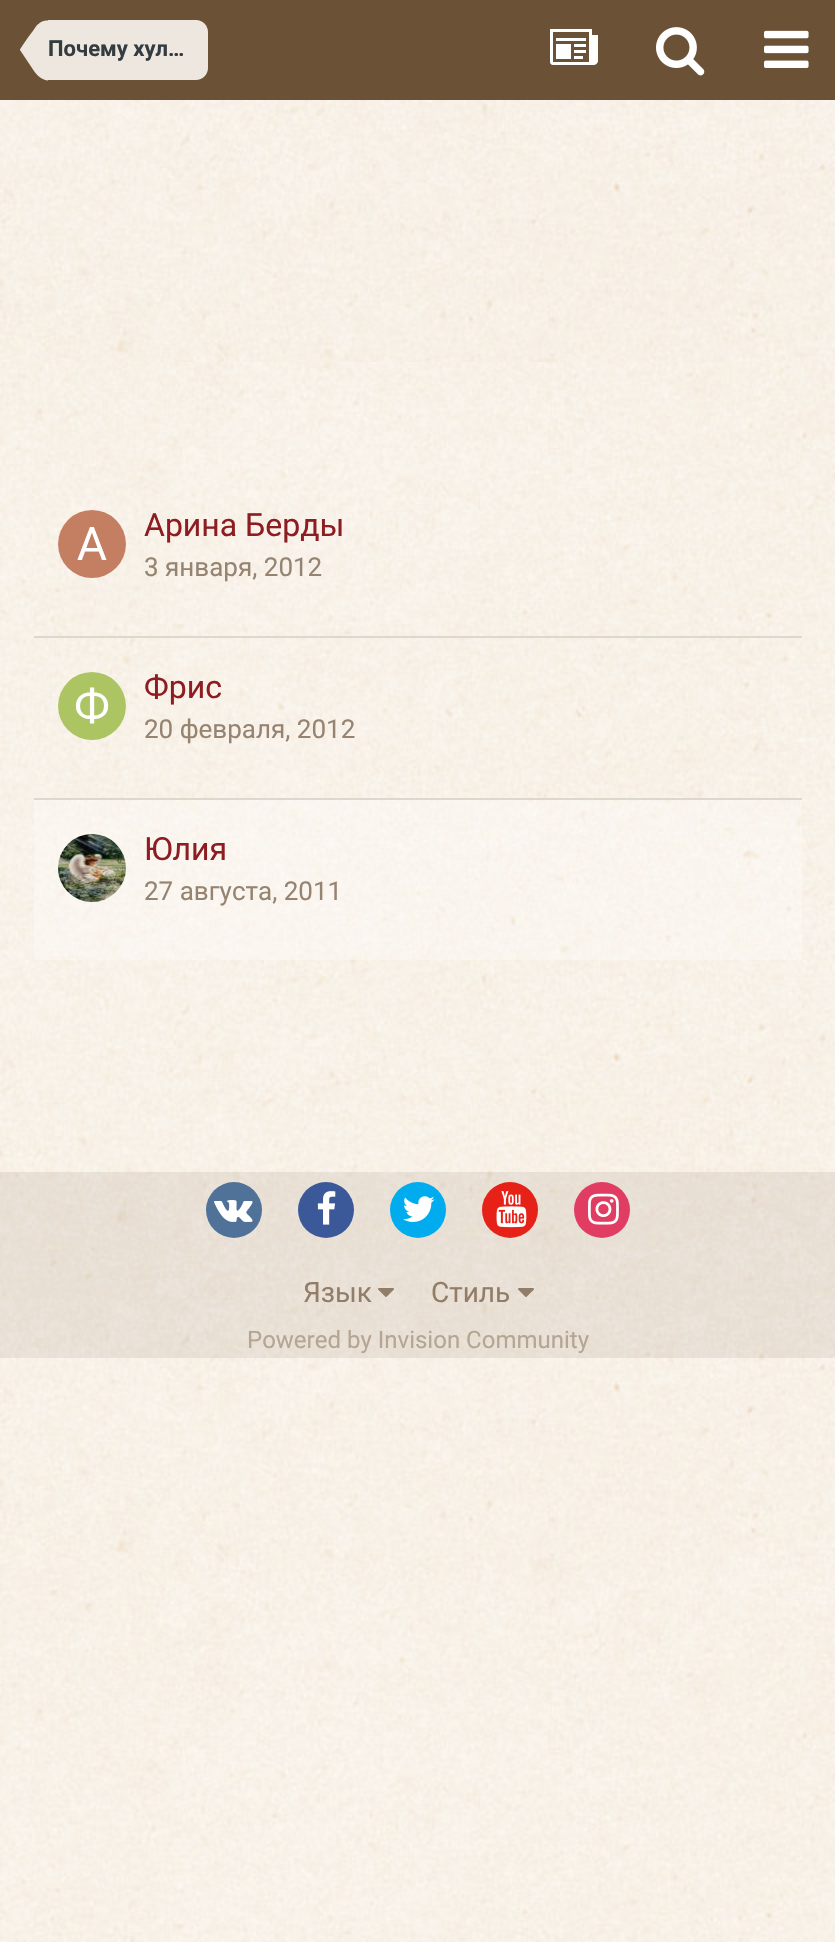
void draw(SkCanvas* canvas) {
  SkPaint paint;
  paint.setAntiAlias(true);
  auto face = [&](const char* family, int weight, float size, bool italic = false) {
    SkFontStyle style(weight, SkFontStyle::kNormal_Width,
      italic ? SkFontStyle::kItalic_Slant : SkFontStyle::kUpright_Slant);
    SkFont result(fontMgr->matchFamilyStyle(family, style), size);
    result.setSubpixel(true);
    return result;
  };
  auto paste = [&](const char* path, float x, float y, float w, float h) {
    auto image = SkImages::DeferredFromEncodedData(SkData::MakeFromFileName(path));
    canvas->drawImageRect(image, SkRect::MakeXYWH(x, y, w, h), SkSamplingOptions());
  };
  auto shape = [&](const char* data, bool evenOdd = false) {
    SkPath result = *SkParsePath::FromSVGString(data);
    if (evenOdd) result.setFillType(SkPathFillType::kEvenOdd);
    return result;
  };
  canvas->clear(0xffffffff);
  paste("img/1.png", 0, 362, 835, 1580);
  paint.setColor(0xff6b5237);
  canvas->drawRect(SkRect::MakeXYWH(0, 0, 835, 100), paint);
  paint.setColor(0xffeee7df);
  canvas->drawPath(shape("M48 20H196C202.5 20 208 25.5 208 32V68C208 74.5 202.5 80 196 80H48Z"), paint);
  canvas->drawPath(shape("M48 50V80.5C43.5 80 38.5 77.5 34 71L20 50ZM48 50H20C20 48.5 31 33.5 32.5 31.5L37 25L38.5 24C41 21.5 44.5 20 48 20.5Z"), paint);
  paste("img/2.png", 550, 29, 48, 36);
  paste("img/3.png", 656, 27, 49, 49);
  paste("img/4.png", 764, 30, 45, 38);
  paste("img/5.png", 0, 100, 835, 262);
  paint.setColor(0xffddd7cc);
  canvas->drawRect(SkRect::MakeXYWH(34, 636, 768, 2), paint);
  paint.setColor(0xffffffff);
  canvas->drawCircle(92, 544, 34, paint);
  paste("img/6.png", 58, 510, 68, 68);
  paint.setColor(0xffddd7cc);
  canvas->drawRect(SkRect::MakeXYWH(34, 798, 768, 2), paint);
  paint.setColor(0xffffffff);
  canvas->drawCircle(92, 706, 34, paint);
  paste("img/7.png", 58, 672, 68, 68);
  paint.setColor(0x4dffffff);
  canvas->drawRect(SkRect::MakeXYWH(34, 800, 768, 160), paint);
  paint.setColor(0xffffffff);
  canvas->drawCircle(92, 868, 34, paint);
  paste("img/8.png", 58, 834, 68, 68);
  paint.setColor(0x1a6b5237);
  canvas->drawRect(SkRect::MakeXYWH(0, 1172, 835, 186), paint);
  paint.setColor(0xff507299);
  canvas->drawCircle(234, 1210, 28, paint);
  paste("img/9.png", 214, 1200, 39, 22);
  paint.setColor(0xff3b5998);
  canvas->drawCircle(326, 1210, 28, paint);
  paste("img/10.png", 317, 1191, 19, 34);
  paint.setColor(0xff00aced);
  canvas->drawCircle(418, 1210, 28, paint);
  paste("img/11.png", 403, 1196, 32, 26);
  paint.setColor(0xffe62117);
  canvas->drawCircle(510, 1210, 28, paint);
  paste("img/12.png", 496, 1191, 31, 37);
  paint.setColor(0xffe13d62);
  canvas->drawCircle(602, 1210, 28, paint);
  paste("img/13.png", 588, 1193, 31, 32);
  paste("img/14.png", 378, 1288, 16, 9);
  paste("img/15.png", 518, 1288, 16, 9);
  auto f0 = face("Roboto", 700, 22);
  paint.setColor(0xff353c41);
  canvas->drawString("Почему хул…", 48, 56, f0, paint);
  auto f1 = face("Roboto", 400, 32);
  paint.setColor(0xff8d1d21);
  canvas->drawString("Арина Берды", 144, 536, f1, paint);
  auto f2 = face("Roboto", 400, 26);
  paint.setColor(0xff968471);
  canvas->drawString("3 января, 2012", 144, 576, f2, paint);
  paint.setColor(0xff8d1d21);
  canvas->drawString("Фрис", 144, 698, f1, paint);
  paint.setColor(0xff968471);
  canvas->drawString("20 февраля, 2012", 144, 738, f2, paint);
  paint.setColor(0xff8d1d21);
  canvas->drawString("Юлия", 144, 860, f1, paint);
  paint.setColor(0xff968471);
  canvas->drawString("27 августа, 2011", 144, 900, f2, paint);
  auto f3 = face("Roboto", 400, 28);
  paint.setColor(0xff917d68);
  canvas->drawString("Язык", 303, 1302, f3, paint);
  canvas->drawString("Стиль", 431, 1302, f3, paint);
  auto f4 = face("Roboto", 400, 24);
  paint.setColor(0xffb5a594);
  canvas->drawString("Powered by Invision Community", 247, 1348, f4, paint);
}
